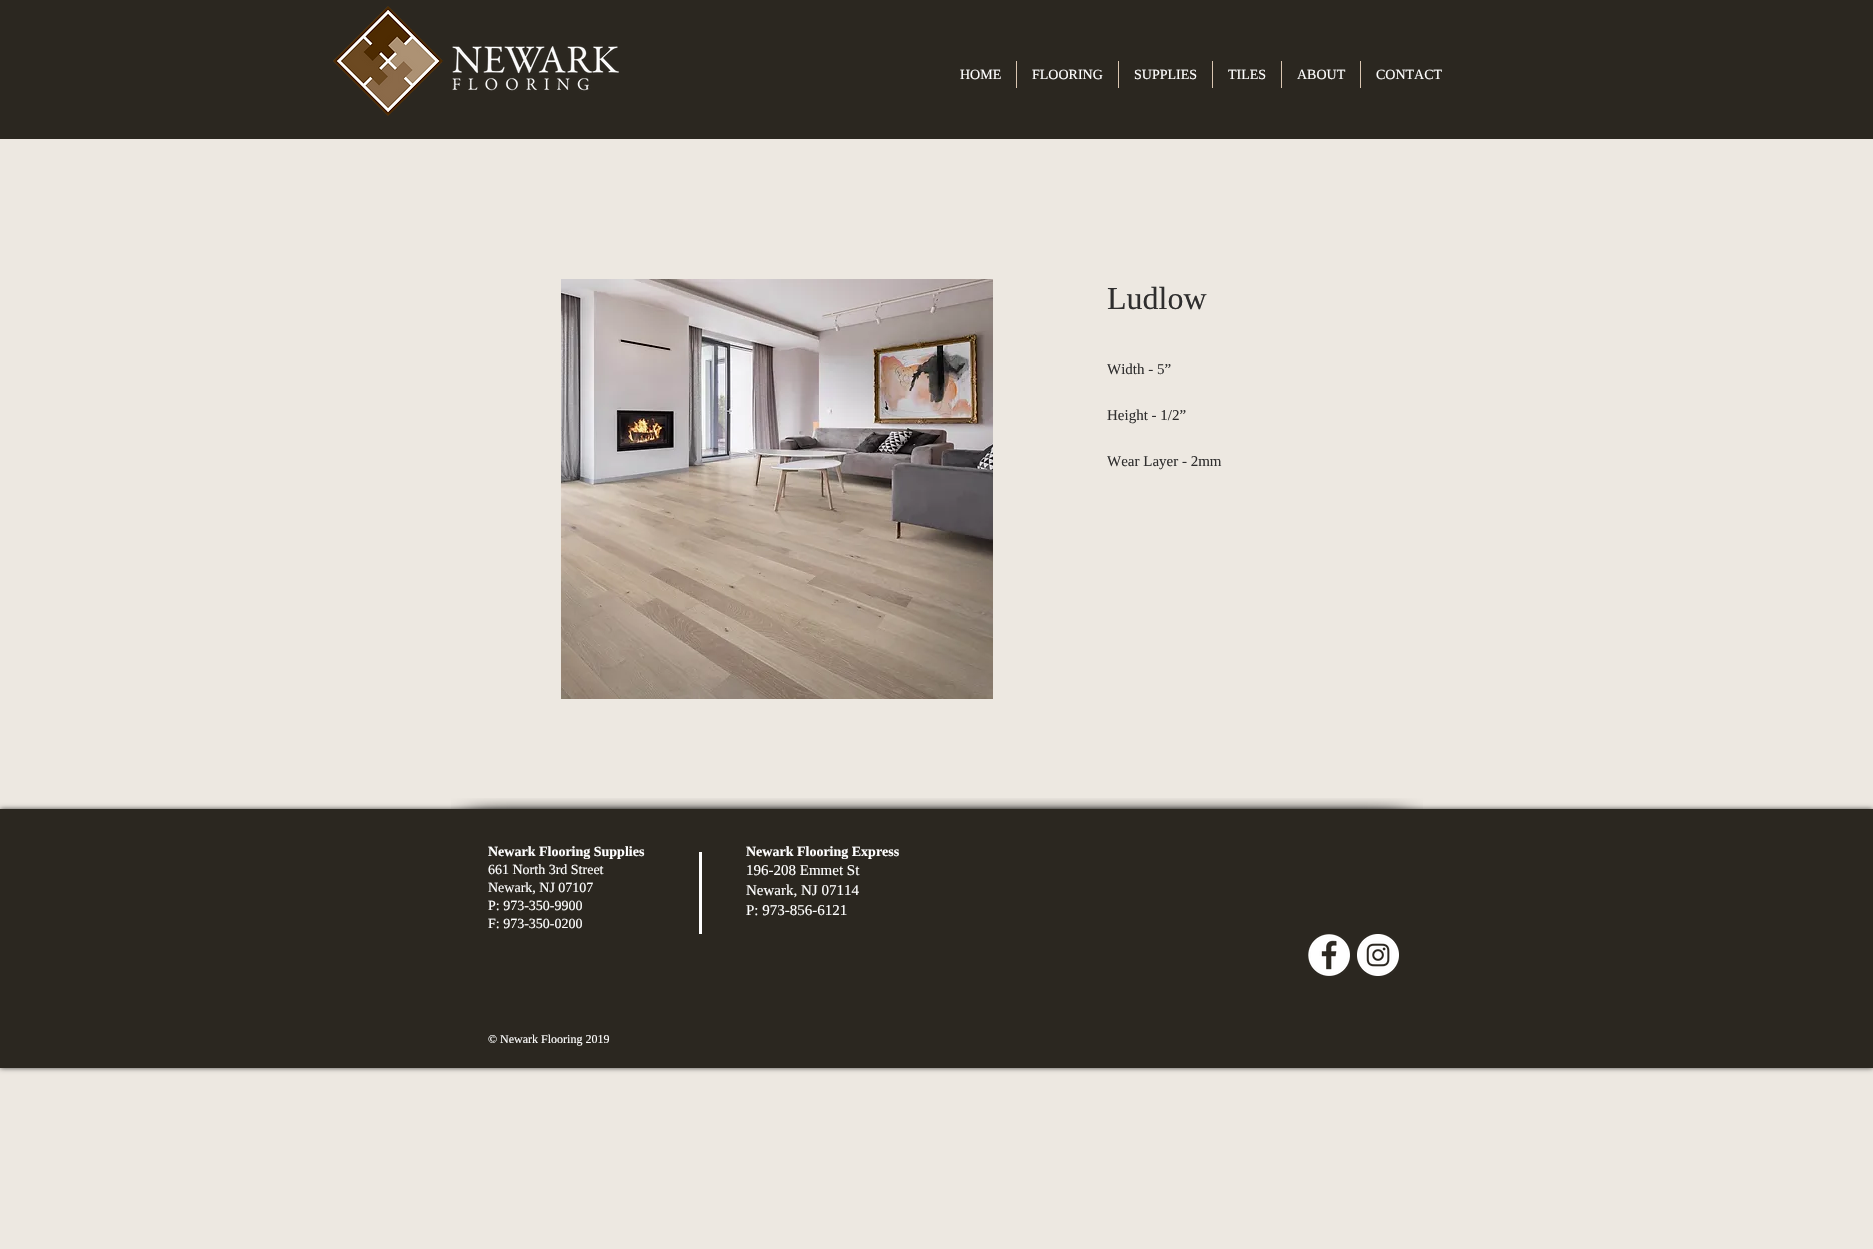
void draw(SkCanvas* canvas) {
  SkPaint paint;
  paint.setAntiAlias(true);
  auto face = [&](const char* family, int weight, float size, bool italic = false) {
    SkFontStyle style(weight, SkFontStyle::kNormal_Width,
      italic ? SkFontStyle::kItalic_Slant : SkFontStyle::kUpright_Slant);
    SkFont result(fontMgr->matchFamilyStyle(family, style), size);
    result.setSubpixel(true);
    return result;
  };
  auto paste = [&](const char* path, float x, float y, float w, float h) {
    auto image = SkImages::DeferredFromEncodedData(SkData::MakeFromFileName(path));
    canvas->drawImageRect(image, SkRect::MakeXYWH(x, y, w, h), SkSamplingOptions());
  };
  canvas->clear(0xffede8e1);
  paint.setColor(0xff2b2720);
  canvas->drawRect(SkRect::MakeXYWH(0, 0, 1873, 139), paint);
  paste("img/1.png", 333, 6, 286, 110);
  {
    const struct { float x, y, w, h; SkColor color; } items[] = {
      {1016, 61, 1, 27, 0xffdac6b1},
      {1118, 61, 1, 27, 0xffdac6b1},
      {1212, 61, 1, 27, 0xffdac6b1},
      {1281, 61, 1, 27, 0xffdac6b1},
      {1360, 61, 1, 27, 0xffdac6b1},
    };
    for (auto [x, y, w, h, color] : items) {
      paint.setColor(color);
      canvas->drawRect(SkRect::MakeXYWH(x, y, w, h), paint);
    }
  }
  paste("img/2.png", 561, 279, 432, 420);
  paint.setColor(0xb3000000);
  paint.setMaskFilter(SkMaskFilter::MakeBlur(kNormal_SkBlurStyle, 2.5f));
  canvas->drawRect(SkRect::MakeXYWH(0, 809, 1873, 259), paint);
  paint.setMaskFilter(nullptr);
  paint.setColor(0xff2b2720);
  canvas->drawRect(SkRect::MakeXYWH(0, 809, 1873, 259), paint);
  paste("img/3.png", 451, 798, 96, 11);
  paste("img/4.png", 547, 798, 780, 11);
  paste("img/5.png", 1327, 798, 96, 11);
  paint.setColor(0xffffffff);
  canvas->drawRect(SkRect::MakeXYWH(699, 852, 3, 82), paint);
  paste("img/6.png", 1308, 934, 42, 42);
  paste("img/7.png", 1357, 934, 42, 42);
  auto f0 = face("Liberation Serif", 400, 14);
  {
    const struct { const char* s; float x, y; } items[] = {
      {"HOME", 960, 79},
      {"FLOORING", 1032, 79},
      {"SUPPLIES", 1134, 79},
      {"TILES", 1228, 79},
      {"ABOUT", 1297, 79},
      {"CONTACT", 1376, 79},
    };
    for (auto [s, x, y] : items) {
      canvas->drawString(s, x, y, f0, paint);
    }
  }
  auto f1 = face("Liberation Serif", 400, 32);
  paint.setColor(0xff2f2e2e);
  canvas->drawString("Ludlow", 1107, 309, f1, paint);
  auto f2 = face("Liberation Serif", 400, 15);
  {
    const struct { const char* s; float x, y; } items[] = {
      {"Width - 5”", 1107, 374},
      {"Height - 1/2”", 1107, 420},
      {"Wear Layer - 2mm", 1107, 466},
    };
    for (auto [s, x, y] : items) {
      canvas->drawString(s, x, y, f2, paint);
    }
  }
  auto f3 = face("Liberation Serif", 700, 14);
  paint.setColor(0xffffffff);
  canvas->drawString("Newark Flooring Supplies", 488, 856, f3, paint);
  {
    const struct { const char* s; float x, y; } items[] = {
      {"661 North 3rd Street", 488, 874},
      {"Newark, NJ 07107", 488, 892},
      {"P: 973-350-9900", 488, 910},
      {"F: 973-350-0200", 488, 928},
    };
    for (auto [s, x, y] : items) {
      canvas->drawString(s, x, y, f0, paint);
    }
  }
  canvas->drawString("Newark Flooring Express", 746, 856, f3, paint);
  {
    const struct { const char* s; float x, y; } items[] = {
      {"196-208 Emmet St", 746, 875},
      {"Newark, NJ 07114", 746, 895},
      {"P: 973-856-6121", 746, 915},
    };
    for (auto [s, x, y] : items) {
      canvas->drawString(s, x, y, f2, paint);
    }
  }
  auto f4 = face("Liberation Serif", 400, 12);
  canvas->drawString("© Newark Flooring 2019", 488, 1043, f4, paint);
}
